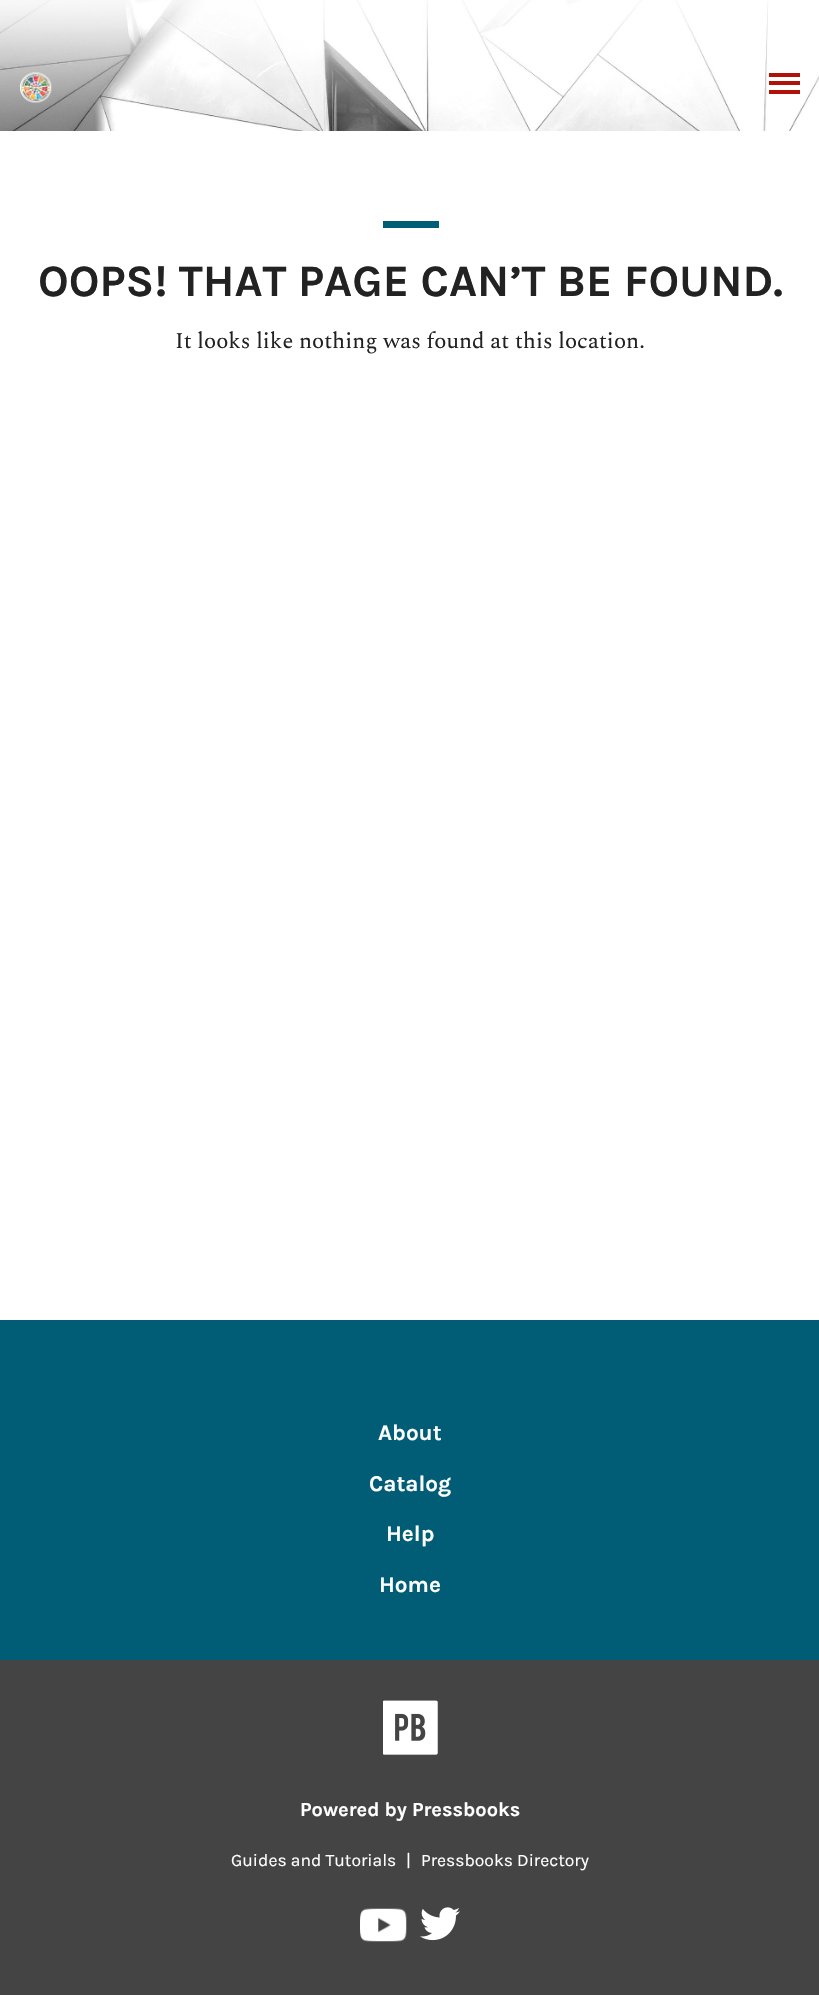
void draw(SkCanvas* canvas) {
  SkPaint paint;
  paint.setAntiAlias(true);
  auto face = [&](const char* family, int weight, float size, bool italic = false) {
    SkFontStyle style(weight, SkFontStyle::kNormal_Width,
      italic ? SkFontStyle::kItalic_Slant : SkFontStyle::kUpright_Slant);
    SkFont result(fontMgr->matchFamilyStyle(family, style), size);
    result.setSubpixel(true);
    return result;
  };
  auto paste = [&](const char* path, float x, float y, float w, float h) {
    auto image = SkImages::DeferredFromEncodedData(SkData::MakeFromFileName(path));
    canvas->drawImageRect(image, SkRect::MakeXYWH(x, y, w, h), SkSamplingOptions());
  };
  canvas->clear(0xffffffff);
  paste("img/1.png", 0, 0, 819, 131);
  paste("img/2.png", 20, 72, 32, 31);
  {
    const struct { float x, y, w, h; SkColor color; } items[] = {
      {769, 81, 31, 4, 0xffb01109},
      {769, 73, 31, 4, 0xffb01109},
      {769, 90, 31, 4, 0xffb01109},
      {383, 221, 56, 7, 0xff015d75},
      {0, 1660, 819, 335, 0xff444444},
      {0, 1320, 819, 340, 0xff015d75},
    };
    for (auto [x, y, w, h, color] : items) {
      paint.setColor(color);
      canvas->drawRect(SkRect::MakeXYWH(x, y, w, h), paint);
    }
  }
  paste("img/3.png", 383, 1700, 55, 55);
  paste("img/4.png", 360, 1908, 47, 34);
  paste("img/5.png", 420, 1907, 40, 34);
  auto f0 = face("Karla", 700, 45);
  paint.setColor(0xff222222);
  canvas->drawString("OOPS! THAT PAGE CAN’T BE FOUND.", 38, 296, f0, paint);
  auto f1 = face("Spectral", 400, 22.5f);
  canvas->drawString("It looks like nothing was found at this location.", 175, 348, f1, paint);
  auto f2 = face("Karla", 700, 22.5f);
  paint.setColor(0xffffffff);
  {
    const struct { const char* s; float x, y; } items[] = {
      {"About", 378, 1440},
      {"Catalog", 369, 1491},
      {"Help", 386, 1541},
      {"Home", 379, 1592},
    };
    for (auto [s, x, y] : items) {
      canvas->drawString(s, x, y, f2, paint);
    }
  }
  auto f3 = face("Karla", 700, 20);
  canvas->drawString("Powered by Pressbooks", 300, 1816, f3, paint);
  auto f4 = face("Karla", 400, 17.5f);
  {
    const struct { const char* s; float x, y; } items[] = {
      {"Guides and Tutorials", 231, 1866},
      {"|", 406, 1866},
      {"Pressbooks Directory", 421, 1866},
    };
    for (auto [s, x, y] : items) {
      canvas->drawString(s, x, y, f4, paint);
    }
  }
}
